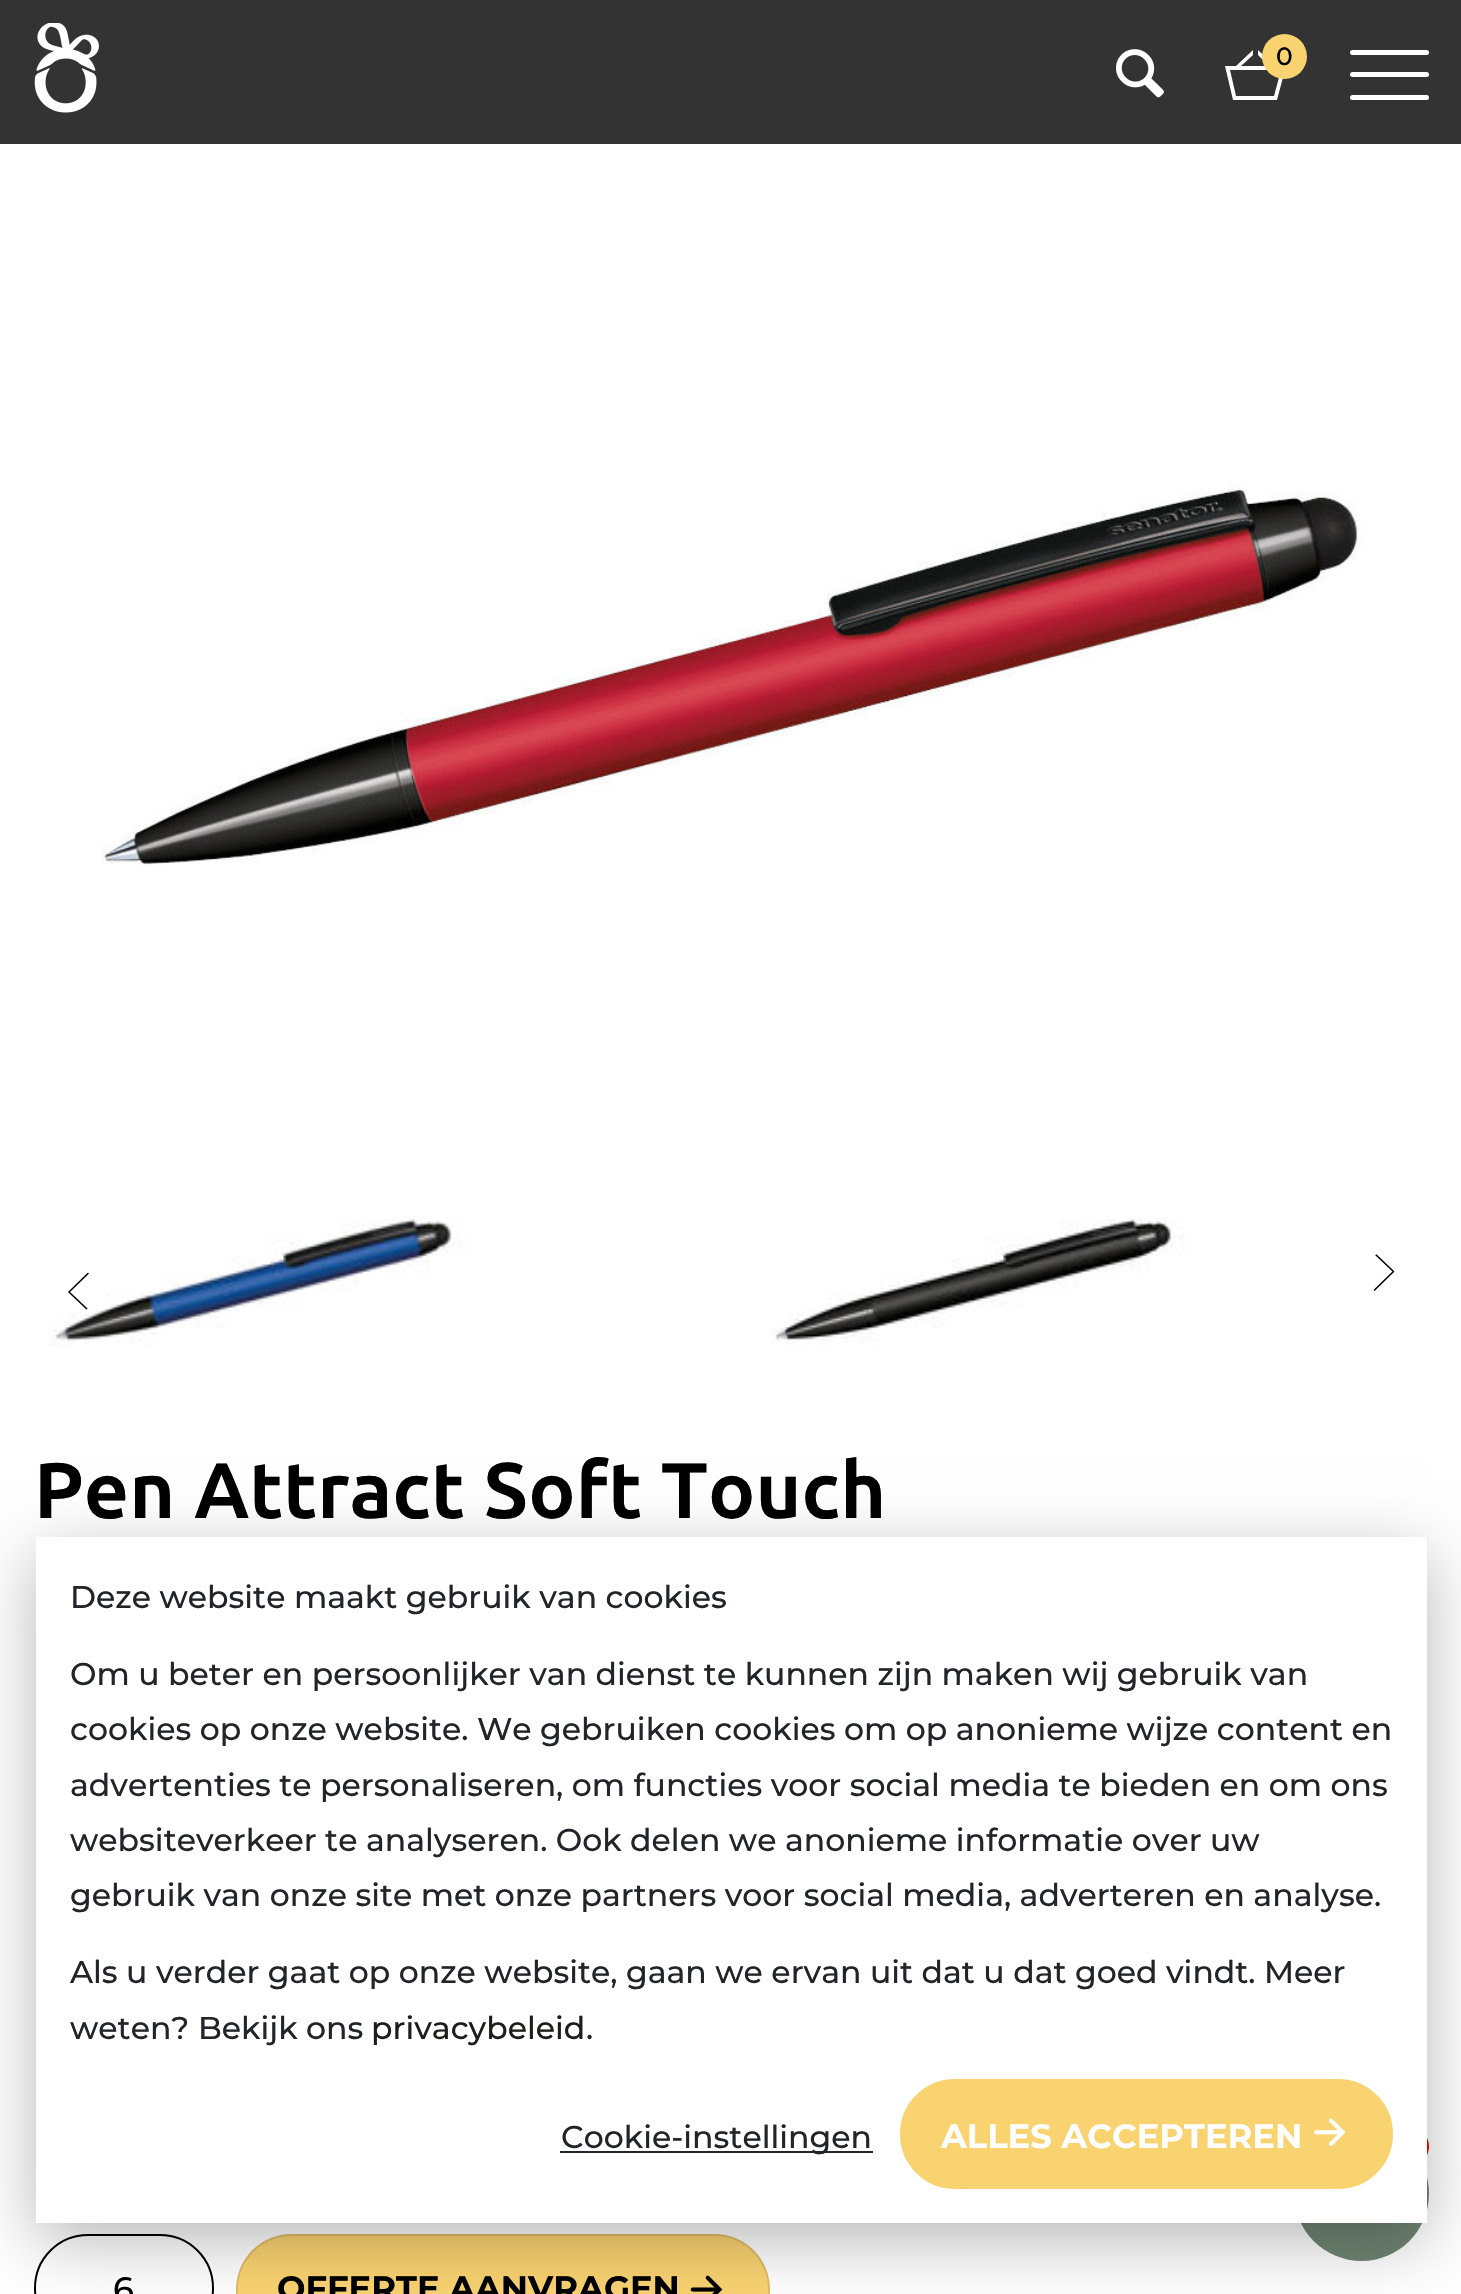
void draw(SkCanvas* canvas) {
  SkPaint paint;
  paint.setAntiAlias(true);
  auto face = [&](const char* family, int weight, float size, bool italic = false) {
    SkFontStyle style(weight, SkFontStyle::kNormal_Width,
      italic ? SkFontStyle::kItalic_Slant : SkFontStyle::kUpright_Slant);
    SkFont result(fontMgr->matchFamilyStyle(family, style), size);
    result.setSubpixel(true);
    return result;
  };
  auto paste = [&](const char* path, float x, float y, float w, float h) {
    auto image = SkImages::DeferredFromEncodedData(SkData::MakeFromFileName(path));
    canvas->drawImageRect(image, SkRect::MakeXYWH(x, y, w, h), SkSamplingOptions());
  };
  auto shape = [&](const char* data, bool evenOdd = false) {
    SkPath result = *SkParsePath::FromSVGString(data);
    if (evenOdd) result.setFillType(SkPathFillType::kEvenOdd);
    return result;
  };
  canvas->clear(0xffffffff);
  paint.setColor(0xff333333);
  canvas->drawRect(SkRect::MakeXYWH(0, 0, 1461, 144), paint);
  paste("img/1.png", 34, 23, 65, 90);
  paste("img/2.png", 1116, 49, 48, 49);
  paint.setColor(0xffffffff);
  canvas->drawPath(shape("M1281 66H1275L1258 50V55L1269 66H1241L1253 55V50L1236 66H1225L1233 100H1277L1286 66ZM1274 96H1236L1230 70H1281Z"), paint);
  paint.setColor(0xfffad371);
  canvas->drawCircle(1284.5f, 56.5f, 22.5f, paint);
  paint.setColor(0xffffffff);
  canvas->drawRoundRect(SkRect::MakeXYWH(1350, 95, 79, 5), 2.5f, 2.5f, paint);
  canvas->drawRoundRect(SkRect::MakeXYWH(1350, 50, 79, 5), 2.5f, 2.5f, paint);
  canvas->drawRoundRect(SkRect::MakeXYWH(1350, 72, 79, 5), 2.5f, 2.5f, paint);
  paste("img/3.png", 102, 483, 1263, 382);
  paste("img/4.png", 51, 1219, 414, 127);
  paste("img/5.png", 772, 1219, 413, 126);
  canvas->save();
  canvas->clipPath(shape("M67.5 1315.5C49 1315.5 34 1300.5 34 1282C34 1263 49 1248 67.5 1248C86 1248 101 1263 101 1282C101 1300.5 86 1315.5 67.5 1315.5Z"), true);
  paint.setStroke(true);
  paint.setStrokeWidth(1.6f);
  paint.setStrokeCap(SkPaint::kRound_Cap);
  paint.setStrokeJoin(SkPaint::kRound_Join);
  paint.setColor(0xff000000);
  canvas->drawPath(shape("M88 1273.5L69 1292L88 1310"), paint);
  canvas->restore();
  canvas->save();
  canvas->clipPath(shape("M1394.5 1249H1395.5C1414 1249 1429 1264 1429 1282.5C1429 1301 1414 1316 1395.5 1316H1394.5C1376 1316 1361 1301 1361 1282.5C1361 1264 1376 1249 1394.5 1249Z"), true);
  canvas->drawPath(shape("M1374.5 1290L1393.5 1271.5L1374.5 1253.5"), paint);
  canvas->restore();
  paint.setStrokeWidth(2);
  paint.setStrokeCap(SkPaint::kButt_Cap);
  paint.setStrokeJoin(SkPaint::kMiter_Join);
  canvas->drawRoundRect(SkRect::MakeXYWH(35, 2235, 178, 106), 53, 53, paint);
  paint.setStroke(false);
  paint.setColor(0xfffad371);
  canvas->drawRoundRect(SkRect::MakeXYWH(236, 2234, 534, 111), 55.5f, 55.5f, paint);
  paint.setStroke(true);
  paint.setColor(0x1a000000);
  canvas->drawRoundRect(SkRect::MakeXYWH(237, 2235, 532, 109), 54.5f, 54.5f, paint);
  paste("img/6.png", 690, 2275, 33, 19);
  paint.setStroke(false);
  paint.setColor(0xff708573);
  canvas->drawCircle(1361.5f, 2193.5f, 67.5f, paint);
  paint.setColor(0xffff0000);
  canvas->drawCircle(1408.5f, 2146.5f, 20.5f, paint);
  paint.setColor(0x47000000);
  paint.setMaskFilter(SkMaskFilter::MakeBlur(kNormal_SkBlurStyle, 31.5f));
  canvas->drawRect(SkRect::MakeXYWH(36, 1555, 1391, 686), paint);
  paint.setMaskFilter(nullptr);
  paint.setColor(0xffffffff);
  canvas->drawRect(SkRect::MakeXYWH(36, 1537, 1391, 686), paint);
  paint.setColor(0xff212529);
  canvas->drawRect(SkRect::MakeXYWH(560, 2151, 313, 2), paint);
  paint.setColor(0xfffad371);
  canvas->drawRoundRect(SkRect::MakeXYWH(901, 2080, 491, 108), 54, 54, paint);
  paint.setStroke(true);
  canvas->drawRoundRect(SkRect::MakeXYWH(901, 2080, 491, 108), 54, 54, paint);
  paste("img/7.png", 1314, 2118, 32, 28);
  auto f0 = face("Montserrat", 500, 25);
  paint.setStroke(false);
  paint.setColor(0xff000000);
  canvas->drawString("0", 1276, 65, f0, paint);
  auto f1 = face("Ubuntu", 700, 78.75f);
  canvas->drawString("Pen Attract Soft Touch", 34, 1518, f1, paint);
  auto f2 = face("Montserrat", 500, 33.75f);
  canvas->drawString("6", 113, 2301, f2, paint);
  auto f3 = face("Montserrat", 700, 33.75f);
  canvas->drawString("OFFERTE AANVRAGEN", 277, 2300, f3, paint);
  auto f4 = face("Montserrat", 500, 31.5f);
  paint.setColor(0xff212529);
  {
    const struct { const char* s; float x, y; } items[] = {
      {"Deze website maakt gebruik van cookies", 70, 1608},
      {"Om u beter en persoonlijker van dienst te kunnen zijn maken wij gebruik van", 70, 1685},
      {"cookies op onze website. We gebruiken cookies om op anonieme wijze content en", 70, 1740},
      {"advertenties te personaliseren, om functies voor social media te bieden en om ons", 70, 1796},
      {"websiteverkeer te analyseren. Ook delen we anonieme informatie over uw", 70, 1851},
      {"gebruik van onze site met onze partners voor social media, adverteren en analyse.", 70, 1906},
      {"Als u verder gaat op onze website, gaan we ervan uit dat u dat goed vindt. Meer", 70, 1983},
      {"weten? Bekijk ons", 70, 2039},
    };
    for (auto [s, x, y] : items) {
      canvas->drawString(s, x, y, f4, paint);
    }
  }
  paint.setColor(0xff1d1d1b);
  canvas->drawString("privacybeleid", 371, 2039, f4, paint);
  paint.setColor(0xff212529);
  canvas->drawString(".", 586, 2039, f4, paint);
  canvas->drawString("Cookie-instellingen", 561, 2148, f4, paint);
  paint.setColor(0xffffffff);
  canvas->drawString("ALLES ACCEPTEREN", 941, 2148, f3, paint);
}
